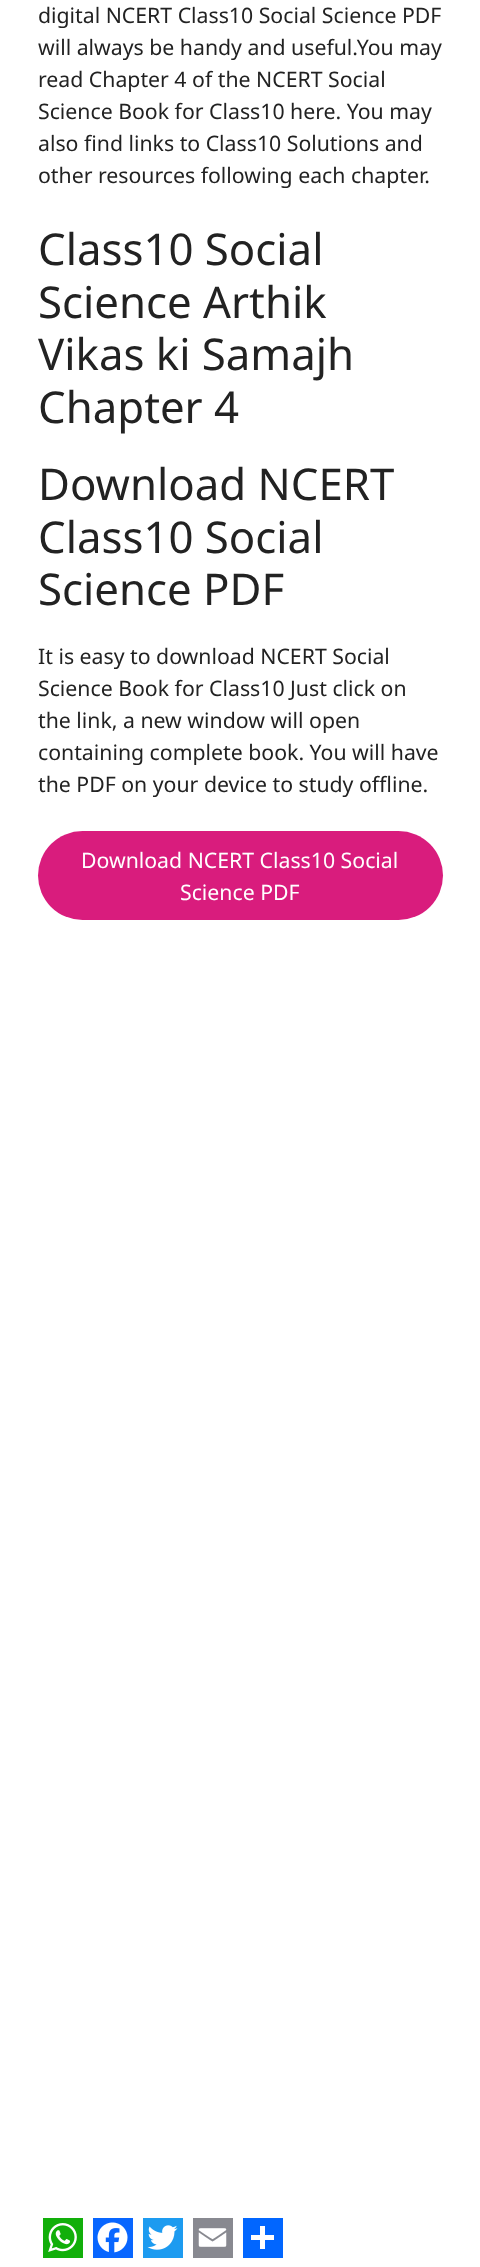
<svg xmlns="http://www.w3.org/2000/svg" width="480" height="2267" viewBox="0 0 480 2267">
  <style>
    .t1 { font: 21.25px Noto Sans; fill: #222; }
    .t2 { font: 43.75px Noto Sans; fill: #222; }
    .t3 { font: 21.25px Noto Sans; fill: #fff; }
  </style>
  <rect width="100%" height="100%" fill="#fff"/>
  <text x="38" y="23" class="t1">digital NCERT Class10 Social Science PDF</text>
  <text x="38" y="55" class="t1">will always be handy and useful.You may</text>
  <text x="38" y="87" class="t1">read Chapter 4 of the NCERT Social</text>
  <text x="38" y="119" class="t1">Science Book for Class10 here. You may</text>
  <text x="38" y="151" class="t1">also find links to Class10 Solutions and</text>
  <text x="38" y="183" class="t1">other resources following each chapter.</text>
  <text x="38" y="265" class="t2">Class10 Social</text>
  <text x="38" y="318" class="t2">Science Arthik</text>
  <text x="38" y="370" class="t2">Vikas ki Samajh</text>
  <text x="38" y="423" class="t2">Chapter 4</text>
  <text x="38" y="500" class="t2">Download NCERT</text>
  <text x="38" y="553" class="t2">Class10 Social</text>
  <text x="38" y="605" class="t2">Science PDF</text>
  <text x="38" y="664" class="t1">It is easy to download NCERT Social</text>
  <text x="38" y="696" class="t1">Science Book for Class10 Just click on</text>
  <text x="38" y="728" class="t1">the link, a new window will open</text>
  <text x="38" y="760" class="t1">containing complete book. You will have</text>
  <text x="38" y="792" class="t1">the PDF on your device to study offline.</text>
  <rect x="38" y="831" width="405" height="89" rx="44.5" fill="#d91c7d"/>
  <text x="81" y="868" class="t3">Download NCERT Class10 Social</text>
  <text x="180" y="900" class="t3">Science PDF</text>
  <rect x="43" y="2218" width="40" height="40" fill="#12af0a"/>
  <image x="48" y="2223" width="29" height="29" href="images/1.png"/>
  <rect x="93" y="2218" width="40" height="40" fill="#0866ff"/>
  <image x="97" y="2222" width="31" height="31" href="images/2.png"/>
  <rect x="143" y="2218" width="40" height="40" fill="#1d9bf0"/>
  <image x="147" y="2225" width="31" height="25" href="images/3.png"/>
  <rect x="193" y="2218" width="40" height="40" fill="#888990"/>
  <image x="198" y="2228" width="29" height="19" href="images/4.png"/>
  <rect x="243" y="2218" width="40" height="40" fill="#0166ff"/>
  <rect x="260" y="2226" width="5" height="23" fill="#fff"/>
  <rect x="251" y="2235" width="23" height="5" fill="#fff"/>
</svg>
